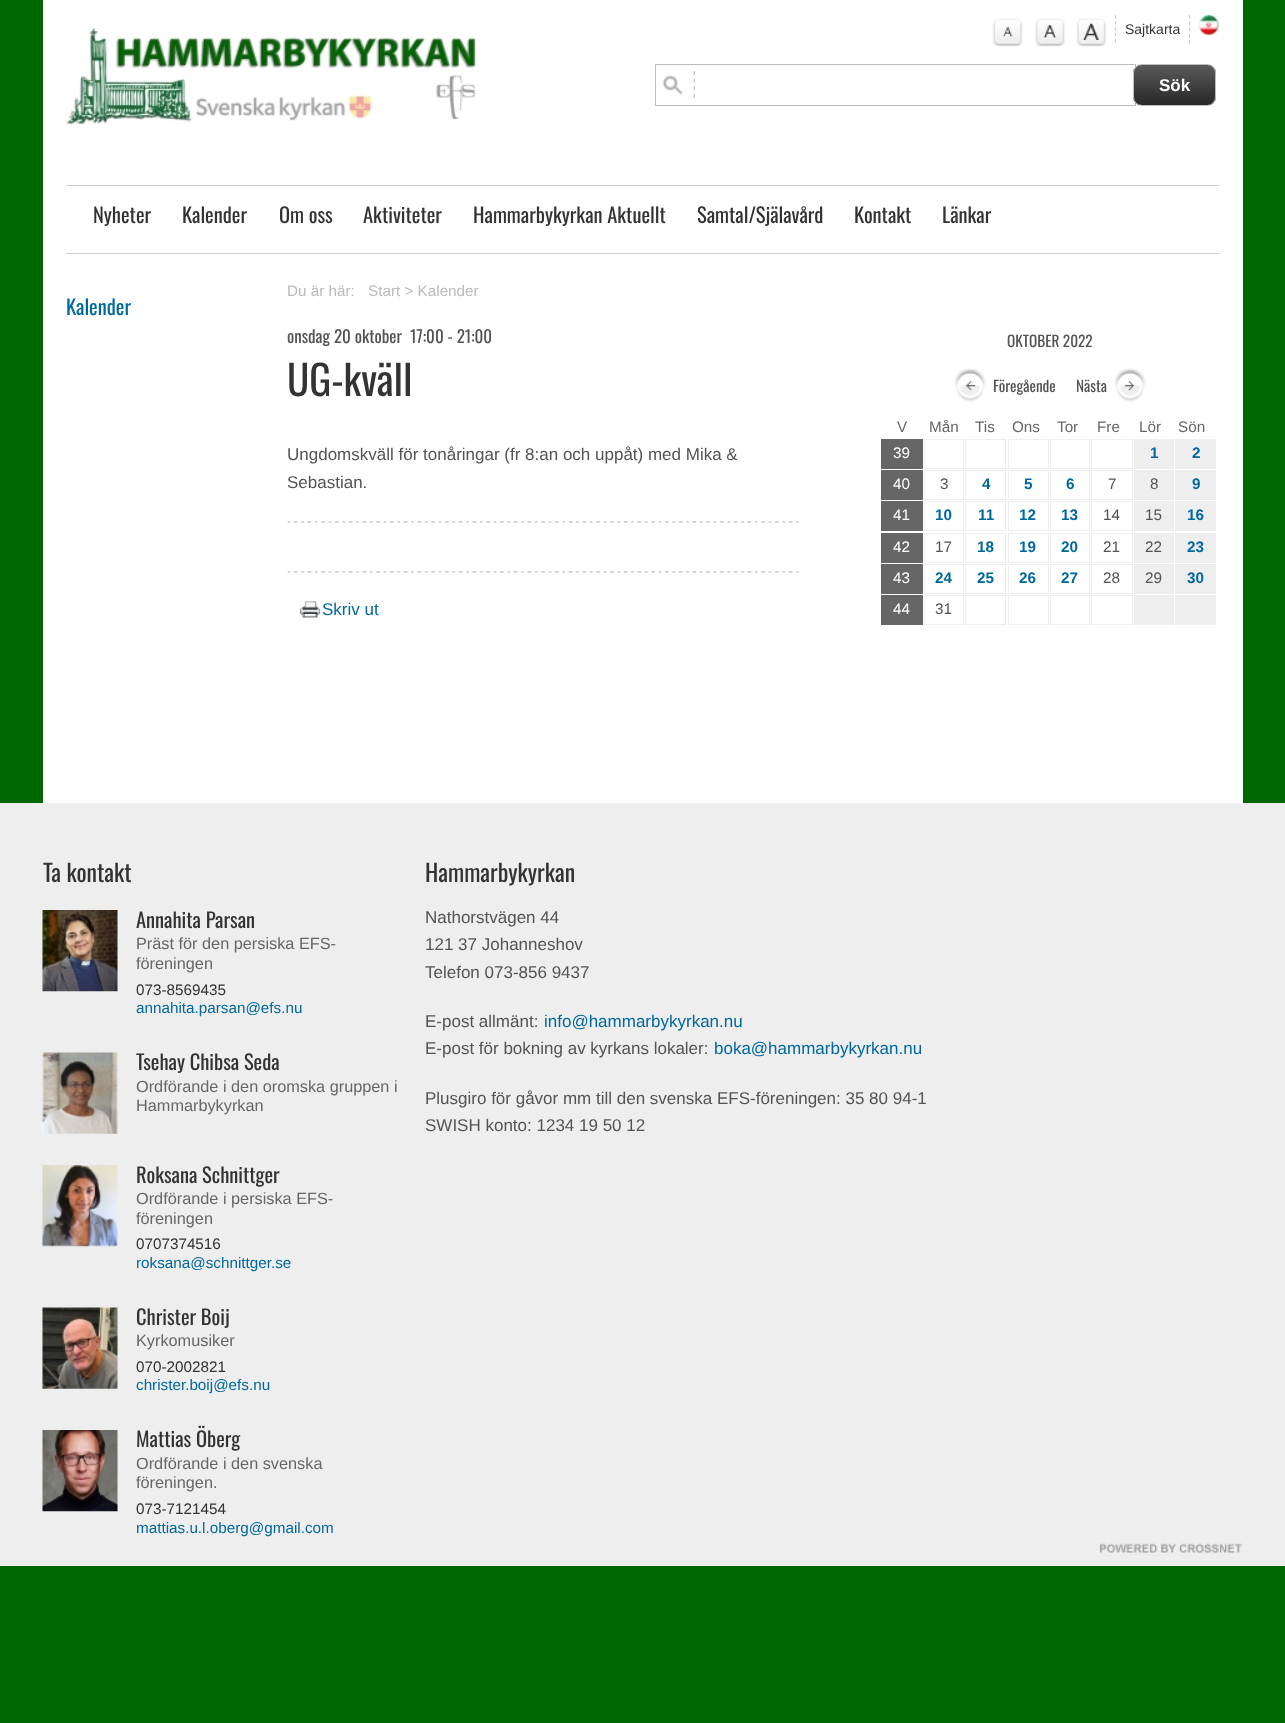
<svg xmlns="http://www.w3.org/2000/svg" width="1285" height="1723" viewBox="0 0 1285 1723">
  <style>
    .t1 { font: 14px Liberation Sans; fill: #333; }
    .t2 { font: bold 17px Liberation Sans; fill: #fff; }
    .t3 { font: 20.5px Oswald; fill: #333; }
    .t4 { font: 20.5px Oswald; fill: #0068a0; }
    .t5 { font: 15.25px Liberation Sans; fill: #bbb; }
    .t6 { font: 17px Oswald; fill: #545454; }
    .t7 { font: 41px Oswald; fill: #333; }
    .t8 { font: 17px Liberation Sans; fill: #545454; }
    .t9 { font: 17px Liberation Sans; fill: #0068a0; }
    .t10 { font: 15.25px Oswald; fill: #545454; }
    .t11 { font: 15.25px Liberation Sans; fill: #666; }
    .t12 { font: 15.25px Liberation Sans; fill: #fff; }
    .t13 { font: bold 15.25px Liberation Sans; fill: #0068a0; }
    .t14 { font: 15.25px Liberation Sans; fill: #545454; }
    .t15 { font: 23.75px Oswald; fill: #333; }
    .t16 { font: 16.3px Liberation Sans; fill: #666; }
    .t17 { font: 15.25px Liberation Sans; fill: #333; }
    .t18 { font: 15.25px Liberation Sans; fill: #0068a0; }
  </style>
  <defs>
    <clipPath id="clip1"><rect x="1133" y="64" width="83" height="42" rx="9"/></clipPath>
    <linearGradient id="g1" gradientUnits="userSpaceOnUse" x1="1174" y1="65" x2="1174" y2="105"><stop offset="0" stop-color="#5a5a5a"/><stop offset="1" stop-color="#272727"/></linearGradient>
  </defs>
  <rect width="100%" height="100%" fill="#060"/>
  <rect x="43" y="0" width="1200" height="803" fill="#fff"/>
  <image x="66" y="27" width="411" height="98" href="images/1.png"/>
  <image x="992" y="18" width="31" height="29" href="images/2.png"/>
  <image x="1035" y="18" width="30" height="29" href="images/3.png"/>
  <image x="1076" y="18" width="31" height="29" href="images/4.png"/>
  <path d="M1115.5 15V42.5" fill="none" stroke="#ccc" stroke-width="1.2" stroke-dasharray="3.75 2.19"/>
  <text x="1125" y="34" class="t1">Sajtkarta</text>
  <path d="M1189.5 15V44" fill="none" stroke="#ccc" stroke-width="1.2" stroke-dasharray="3.75 2.5"/>
  <image x="1198" y="15" width="21" height="20" href="images/5.png"/>
  <image x="662" y="71" width="33" height="27" href="images/6.png"/>
  <rect x="655.5" y="64.5" width="480" height="41" fill="none" stroke="#bdbdbd"/>
  <g clip-path="url(#clip1)">
    <rect x="1133" y="65" width="83" height="40" fill="url(#g1)"/>
  </g>
  <rect x="1133.5" y="64.5" width="82" height="41" rx="8.5" fill="none" stroke="#bdbdbd"/>
  <text x="1159" y="91" class="t2">Sök</text>
  <rect x="66" y="185" width="1153" height="1" fill="#ccc"/>
  <rect x="66" y="253" width="1153" height="1" fill="#ccc"/>
  <text x="93" y="223" class="t3">Nyheter</text>
  <text x="182" y="223" class="t3">Kalender</text>
  <text x="279" y="223" class="t3">Om oss</text>
  <text x="363" y="223" class="t3">Aktiviteter</text>
  <text x="473" y="223" class="t3">Hammarbykyrkan Aktuellt</text>
  <text x="697" y="223" class="t3">Samtal/Själavård</text>
  <text x="854" y="223" class="t3">Kontakt</text>
  <text x="942" y="223" class="t3">Länkar</text>
  <image x="960" y="278" width="2" height="1" href="images/7.png"/>
  <text x="66" y="315" class="t4">Kalender</text>
  <text x="287" y="296" class="t5">Du är här:</text>
  <text x="368" y="296" class="t5">Start &gt; Kalender</text>
  <text x="287" y="343" class="t6">onsdag 20 oktober</text>
  <text x="410" y="343" class="t6">17:00 - 21:00</text>
  <text x="287" y="396" class="t7">UG-kväll</text>
  <text x="287" y="460" class="t8">Ungdomskväll för tonåringar (fr 8:an och uppåt) med Mika &amp;</text>
  <text x="287" y="488" class="t8">Sebastian.</text>
  <image x="287" y="521" width="516" height="2" href="images/8.png"/>
  <image x="287" y="571" width="516" height="2" href="images/8.png"/>
  <image x="300" y="601" width="20" height="17" href="images/9.png"/>
  <text x="322" y="615" class="t9">Skriv ut</text>
  <text x="1007" y="347" class="t10">OKTOBER 2022</text>
  <image x="954" y="368" width="32" height="34" href="images/10.png"/>
  <text x="993" y="392" class="t10">Föregående</text>
  <text x="1076" y="392" class="t10">Nästa</text>
  <image x="1114" y="368" width="32" height="34" href="images/11.png"/>
  <text x="897" y="432" class="t11">V</text>
  <text x="929" y="432" class="t11">Mån</text>
  <text x="975" y="432" class="t11">Tis</text>
  <text x="1012" y="432" class="t11">Ons</text>
  <text x="1057" y="432" class="t11">Tor</text>
  <text x="1097" y="432" class="t11">Fre</text>
  <text x="1139" y="432" class="t11">Lör</text>
  <text x="1178" y="432" class="t11">Sön</text>
  <rect x="881" y="439" width="42" height="30" fill="#666"/>
  <text x="893" y="458" class="t12">39</text>
  <rect x="924.5" y="439.5" width="39" height="29" fill="none" stroke="#eee"/>
  <rect x="965.5" y="439.5" width="40" height="29" fill="none" stroke="#eee"/>
  <rect x="1008.5" y="439.5" width="40" height="29" fill="none" stroke="#eee"/>
  <rect x="1050.5" y="439.5" width="39" height="29" fill="none" stroke="#eee"/>
  <rect x="1091.5" y="439.5" width="41" height="29" fill="none" stroke="#eee"/>
  <rect x="1134" y="439" width="40" height="30" fill="#eee"/>
  <text x="1150" y="458" class="t13">1</text>
  <rect x="1175" y="439" width="41" height="30" fill="#eee"/>
  <text x="1192" y="458" class="t13">2</text>
  <rect x="881" y="470" width="42" height="30" fill="#666"/>
  <text x="893" y="489" class="t12">40</text>
  <rect x="924.5" y="470.5" width="39" height="29" fill="none" stroke="#eee"/>
  <text x="940" y="489" class="t14">3</text>
  <rect x="965.5" y="470.5" width="40" height="29" fill="none" stroke="#eee"/>
  <text x="982" y="489" class="t13">4</text>
  <rect x="1008.5" y="470.5" width="40" height="29" fill="none" stroke="#eee"/>
  <text x="1024" y="489" class="t13">5</text>
  <rect x="1050.5" y="470.5" width="39" height="29" fill="none" stroke="#eee"/>
  <text x="1066" y="489" class="t13">6</text>
  <rect x="1091.5" y="470.5" width="41" height="29" fill="none" stroke="#eee"/>
  <text x="1108" y="489" class="t14">7</text>
  <rect x="1134" y="470" width="40" height="30" fill="#eee"/>
  <text x="1150" y="489" class="t14">8</text>
  <rect x="1175" y="470" width="41" height="30" fill="#eee"/>
  <text x="1192" y="489" class="t13">9</text>
  <rect x="881" y="501" width="42" height="30" fill="#666"/>
  <text x="893" y="520" class="t12">41</text>
  <rect x="924.5" y="501.5" width="39" height="29" fill="none" stroke="#eee"/>
  <text x="935" y="520" class="t13">10</text>
  <rect x="965.5" y="501.5" width="40" height="29" fill="none" stroke="#eee"/>
  <text x="978" y="520" class="t13">11</text>
  <rect x="1008.5" y="501.5" width="40" height="29" fill="none" stroke="#eee"/>
  <text x="1019" y="520" class="t13">12</text>
  <rect x="1050.5" y="501.5" width="39" height="29" fill="none" stroke="#eee"/>
  <text x="1061" y="520" class="t13">13</text>
  <rect x="1091.5" y="501.5" width="41" height="29" fill="none" stroke="#eee"/>
  <text x="1103" y="520" class="t14">14</text>
  <rect x="1134" y="501" width="40" height="30" fill="#eee"/>
  <text x="1145" y="520" class="t14">15</text>
  <rect x="1175" y="501" width="41" height="30" fill="#eee"/>
  <text x="1187" y="520" class="t13">16</text>
  <rect x="881" y="533" width="42" height="30" fill="#666"/>
  <text x="893" y="552" class="t12">42</text>
  <rect x="924.5" y="533.5" width="39" height="29" fill="none" stroke="#eee"/>
  <text x="935" y="552" class="t14">17</text>
  <rect x="965.5" y="533.5" width="40" height="29" fill="none" stroke="#eee"/>
  <text x="977" y="552" class="t13">18</text>
  <rect x="1008.5" y="533.5" width="40" height="29" fill="none" stroke="#eee"/>
  <text x="1019" y="552" class="t13">19</text>
  <rect x="1050.5" y="533.5" width="39" height="29" fill="none" stroke="#eee"/>
  <text x="1061" y="552" class="t13">20</text>
  <rect x="1091.5" y="533.5" width="41" height="29" fill="none" stroke="#eee"/>
  <text x="1103" y="552" class="t14">21</text>
  <rect x="1134" y="533" width="40" height="30" fill="#eee"/>
  <text x="1145" y="552" class="t14">22</text>
  <rect x="1175" y="533" width="41" height="30" fill="#eee"/>
  <text x="1187" y="552" class="t13">23</text>
  <rect x="881" y="564" width="42" height="30" fill="#666"/>
  <text x="893" y="583" class="t12">43</text>
  <rect x="924.5" y="564.5" width="39" height="29" fill="none" stroke="#eee"/>
  <text x="935" y="583" class="t13">24</text>
  <rect x="965.5" y="564.5" width="40" height="29" fill="none" stroke="#eee"/>
  <text x="977" y="583" class="t13">25</text>
  <rect x="1008.5" y="564.5" width="40" height="29" fill="none" stroke="#eee"/>
  <text x="1019" y="583" class="t13">26</text>
  <rect x="1050.5" y="564.5" width="39" height="29" fill="none" stroke="#eee"/>
  <text x="1061" y="583" class="t13">27</text>
  <rect x="1091.5" y="564.5" width="41" height="29" fill="none" stroke="#eee"/>
  <text x="1103" y="583" class="t14">28</text>
  <rect x="1134" y="564" width="40" height="30" fill="#eee"/>
  <text x="1145" y="583" class="t14">29</text>
  <rect x="1175" y="564" width="41" height="30" fill="#eee"/>
  <text x="1187" y="583" class="t13">30</text>
  <rect x="881" y="595" width="42" height="30" fill="#666"/>
  <text x="893" y="614" class="t12">44</text>
  <rect x="924.5" y="595.5" width="39" height="29" fill="none" stroke="#eee"/>
  <text x="935" y="614" class="t14">31</text>
  <rect x="965.5" y="595.5" width="40" height="29" fill="none" stroke="#eee"/>
  <rect x="1008.5" y="595.5" width="40" height="29" fill="none" stroke="#eee"/>
  <rect x="1050.5" y="595.5" width="39" height="29" fill="none" stroke="#eee"/>
  <rect x="1091.5" y="595.5" width="41" height="29" fill="none" stroke="#eee"/>
  <rect x="1134" y="595" width="40" height="30" fill="#eee"/>
  <rect x="1175" y="595" width="41" height="30" fill="#eee"/>
  <rect x="0" y="803" width="1285" height="763" fill="#eee"/>
  <text x="43" y="882" class="t15">Ta kontakt</text>
  <image x="42" y="910" width="76" height="82" href="images/12.png"/>
  <text x="136" y="928" class="t3">Annahita Parsan</text>
  <text x="136" y="949" class="t16">Präst för den persiska EFS-</text>
  <text x="136" y="969" class="t16">föreningen</text>
  <text x="136" y="995" class="t17">073-8569435</text>
  <text x="136" y="1013" class="t18">annahita.parsan@efs.nu</text>
  <image x="42" y="1052" width="76" height="82" href="images/13.png"/>
  <text x="136" y="1070" class="t3">Tsehay Chibsa Seda</text>
  <text x="136" y="1092" class="t16">Ordförande i den oromska gruppen i</text>
  <text x="136" y="1111" class="t16">Hammarbykyrkan</text>
  <image x="42" y="1165" width="76" height="82" href="images/14.png"/>
  <text x="136" y="1183" class="t3">Roksana Schnittger</text>
  <text x="136" y="1204" class="t16">Ordförande i persiska EFS-</text>
  <text x="136" y="1224" class="t16">föreningen</text>
  <text x="136" y="1249" class="t17">0707374516</text>
  <text x="136" y="1268" class="t18">roksana@schnittger.se</text>
  <image x="42" y="1307" width="76" height="82" href="images/15.png"/>
  <text x="136" y="1325" class="t3">Christer Boij</text>
  <text x="136" y="1346" class="t16">Kyrkomusiker</text>
  <text x="136" y="1372" class="t17">070-2002821</text>
  <text x="136" y="1390" class="t18">christer.boij@efs.nu</text>
  <image x="42" y="1430" width="76" height="82" href="images/16.png"/>
  <text x="136" y="1447" class="t3">Mattias Öberg</text>
  <text x="136" y="1469" class="t16">Ordförande i den svenska</text>
  <text x="136" y="1488" class="t16">föreningen.</text>
  <text x="136" y="1514" class="t17">073-7121454</text>
  <text x="136" y="1533" class="t18">mattias.u.l.oberg@gmail.com</text>
  <text x="425" y="882" class="t15">Hammarbykyrkan</text>
  <text x="425" y="923" class="t8">Nathorstvägen 44</text>
  <text x="425" y="950" class="t8">121 37 Johanneshov</text>
  <text x="425" y="978" class="t8">Telefon 073-856 9437</text>
  <text x="425" y="1027" class="t8">E-post allmänt:</text>
  <text x="544" y="1027" class="t9">info@hammarbykyrkan.nu</text>
  <text x="425" y="1054" class="t8">E-post för bokning av kyrkans lokaler:</text>
  <text x="714" y="1054" class="t9">boka@hammarbykyrkan.nu</text>
  <text x="425" y="1104" class="t8">Plusgiro för gåvor mm till den svenska EFS-föreningen: 35 80 94-1</text>
  <text x="425" y="1131" class="t8">SWISH konto: 1234 19 50 12</text>
  <image x="1099" y="1543" width="144" height="10" href="images/17.png"/>
</svg>
